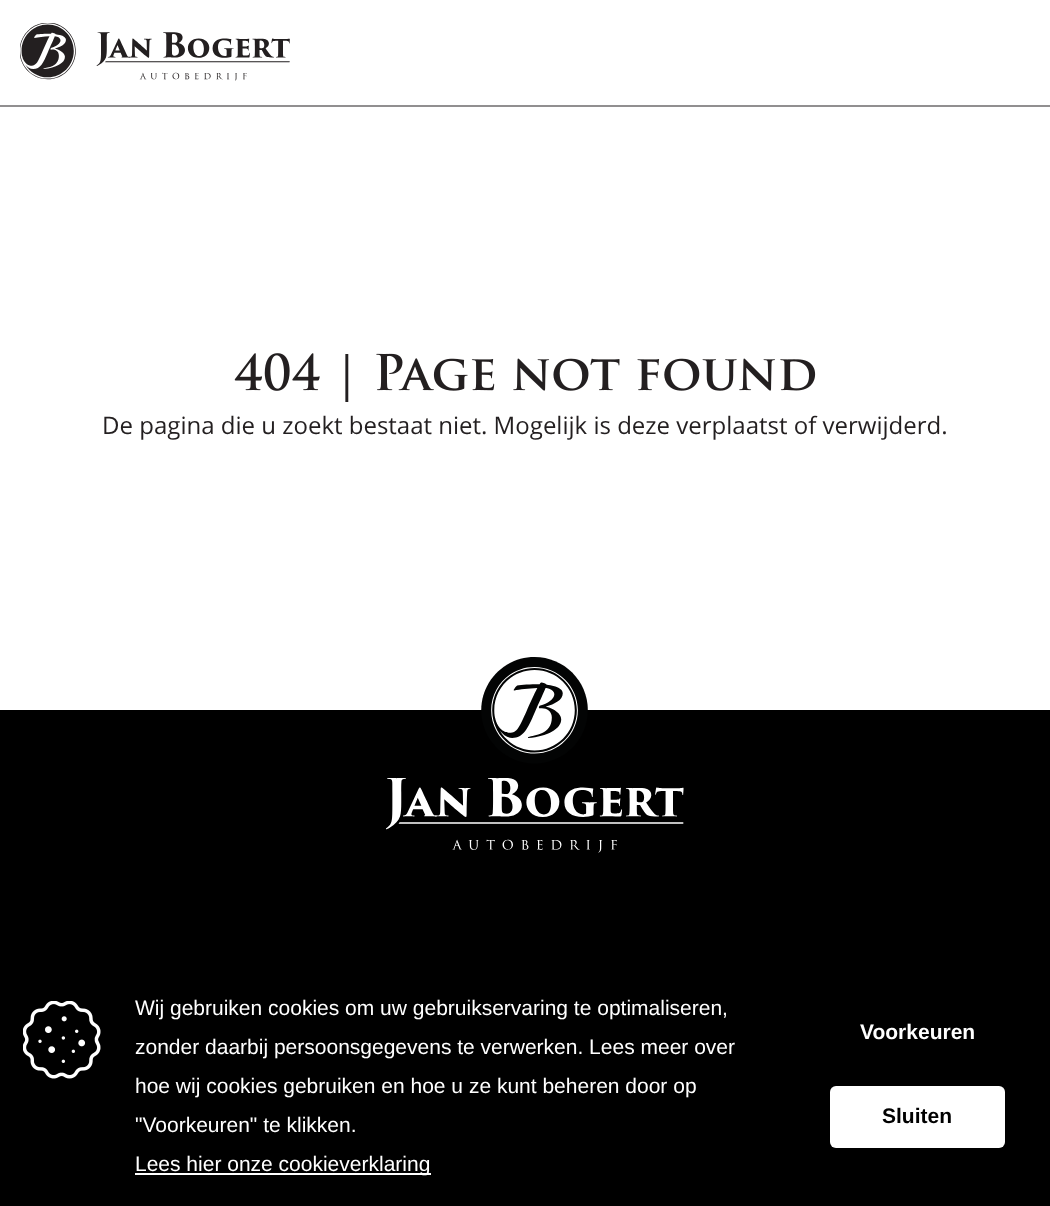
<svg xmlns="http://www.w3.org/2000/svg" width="1050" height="1206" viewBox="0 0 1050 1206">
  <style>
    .t1 { font: 24px Open Sans; fill: #231f20; }
    .t2 { font: 21px Liberation Sans; fill: #fff; }
    .t3 { font: bold 21px Liberation Sans; fill: #fff; }
    .t4 { font: bold 21px Liberation Sans; fill: #000; }
  </style>
  <rect width="100%" height="100%" fill="#fff"/>
  <rect x="0" y="105" width="1050" height="2" fill="#918f90"/>
  <image x="20" y="23" width="270" height="58" href="images/1.png"/>
  <image x="234" y="353" width="582" height="49" href="images/2.png"/>
  <text x="102" y="434" class="t1">De pagina die u zoekt bestaat niet. Mogelijk is deze verplaatst of verwijderd.</text>
  <rect x="0" y="710" width="1050" height="496" fill="#000"/>
  <image x="386" y="657" width="298" height="196" href="images/3.png"/>
  <image x="23" y="1001" width="78" height="78" href="images/4.png"/>
  <text x="135" y="1015" class="t2">Wij gebruiken cookies om uw gebruikservaring te optimaliseren,</text>
  <text x="135" y="1054" class="t2">zonder daarbij persoonsgegevens te verwerken. Lees meer over</text>
  <text x="135" y="1093" class="t2">hoe wij cookies gebruiken en hoe u ze kunt beheren door op</text>
  <text x="135" y="1132" class="t2">"Voorkeuren" te klikken.</text>
  <rect x="135" y="1173" width="296" height="2" fill="#fff"/>
  <text x="135" y="1171" class="t2">Lees hier onze cookieverklaring</text>
  <text x="860" y="1039" class="t3">Voorkeuren</text>
  <rect x="830" y="1086" width="175" height="62" rx="6" fill="#fff"/>
  <text x="882" y="1123" class="t4">Sluiten</text>
</svg>
